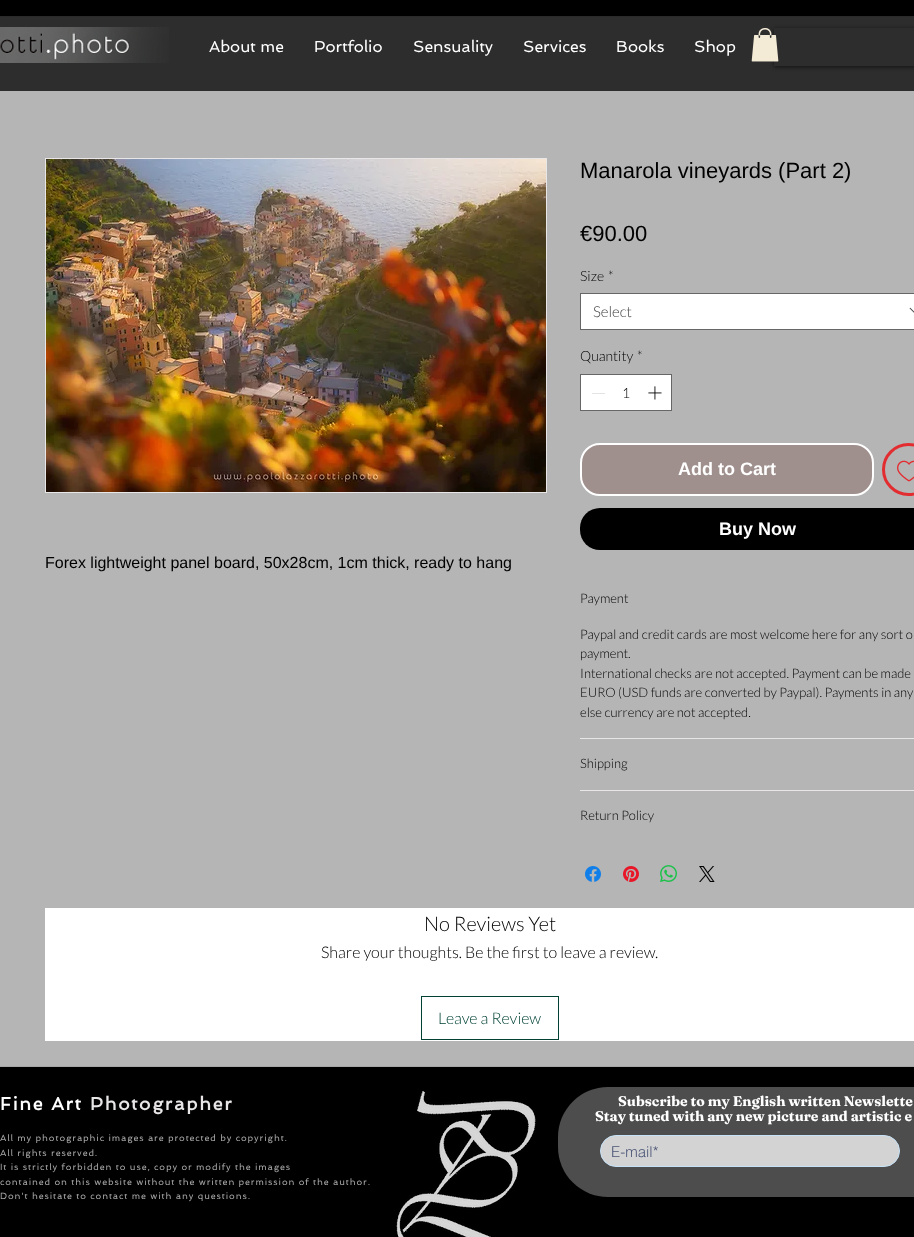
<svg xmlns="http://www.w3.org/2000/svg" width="914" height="1237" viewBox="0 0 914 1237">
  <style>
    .t1 { font: 16px Spinnaker; fill: #fff; }
    .t2 { font: 16px Liberation Sans; fill: #000; }
    .t3 { font: 22px Liberation Sans; fill: #000; }
    .t4 { font: 300 14px Lato; fill: #000; }
    .t5 { font: 300 15px Lato; fill: #444; }
    .t6 { font: bold 18px Liberation Sans; fill: #fff; }
    .t7 { font: 300 13px Lato; fill: #000; }
    .t8 { font: 300 20px Lato; fill: #000; }
    .t9 { font: 300 16px Lato; fill: #000; }
    .t10 { font: 300 16px Lato; fill: #014235; }
    .t11 { font: bold 18px Spinnaker; letter-spacing: 1.75px; fill: #fff; }
    .t12 { font: bold 18px Spinnaker; letter-spacing: 1.75px; fill: #e8e6e6; }
    .t13 { font: bold 14px Fraunces; fill: #fff; }
    .t14 { font: 300 15px helvetica; fill: #4b5676; }
    .t15 { font: 9px Spinnaker; letter-spacing: 0.9px; fill: #a9a9a9; }
  </style>
  <defs>
    <clipPath id="clip1"><path d="M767 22H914V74H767ZM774 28H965V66H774Z" clip-rule="evenodd"/></clipPath>
  </defs>
  <rect width="100%" height="100%" fill="#000"/>
  <rect x="0" y="17" width="914" height="74" fill="#2d2d2d"/>
  <image x="0" y="27" width="169" height="36" href="images/1.png"/>
  <text x="209" y="52" class="t1">About me</text>
  <text x="314" y="52" class="t1">Portfolio</text>
  <text x="413" y="52" class="t1">Sensuality</text>
  <text x="523" y="52" class="t1">Services</text>
  <text x="616" y="52" class="t1">Books</text>
  <text x="694" y="52" class="t1">Shop</text>
  <g clip-path="url(#clip1)">
    <rect x="774" y="29" width="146" height="38" fill="#00000099" filter="blur(2px)"/>
  </g>
  <image x="751" y="28" width="28" height="34" href="images/2.png"/>
  <rect x="0" y="1066" width="914" height="1" fill="#a6a6a6"/>
  <rect x="0" y="16" width="914" height="1" fill="#2a2a2a"/>
  <rect x="0" y="91" width="914" height="975" fill="#b5b5b5"/>
  <rect x="45.5" y="158.5" width="501" height="334" fill="none" stroke="#e8e6e6"/>
  <image x="46" y="159" width="500" height="333" href="images/3.png"/>
  <text x="45" y="568" class="t2">Forex lightweight panel board, 50x28cm, 1cm thick, ready to hang</text>
  <text x="580" y="178" class="t3">Manarola vineyards (Part 2)</text>
  <text x="580" y="241" class="t3">€90.00</text>
  <text x="580" y="281" class="t4">Size</text>
  <text x="608" y="281" class="t4">*</text>
  <rect x="580.5" y="293.5" width="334" height="36" fill="#fff" stroke="#666"/>
  <text x="593" y="317" class="t5">Select</text>
  <image x="909" y="307" width="5" height="6" href="images/4.png"/>
  <text x="580" y="361" class="t4">Quantity</text>
  <text x="637" y="361" class="t4">*</text>
  <rect x="580.5" y="374.5" width="91" height="36" fill="#fff" stroke="#666"/>
  <rect x="592" y="393" width="13" height="1" fill="#e3e3e3"/>
  <text x="622" y="398" class="t4">1</text>
  <image x="648" y="386" width="14" height="14" href="images/5.png"/>
  <rect x="581" y="444" width="292" height="51" rx="19" fill="#9f908e" stroke="#fff" stroke-width="2"/>
  <text x="678" y="475" class="t6">Add to Cart</text>
  <circle cx="908.5" cy="469.5" r="25" fill="none" stroke="#e32c30" stroke-width="3"/>
  <image x="897" y="460" width="17" height="22" href="images/6.png"/>
  <rect x="580" y="508" width="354" height="42" rx="20" fill="#000"/>
  <text x="719" y="535" class="t6">Buy Now</text>
  <rect x="580" y="738" width="334" height="1" fill="#e8e6e6"/>
  <text x="580" y="603" class="t7">Payment</text>
  <text x="580" y="639" class="t7">Paypal and credit cards are most welcome here for any sort o</text>
  <text x="580" y="658" class="t7">payment.</text>
  <text x="580" y="678" class="t7">International checks are not accepted. Payment can be made</text>
  <text x="580" y="697" class="t7">EURO (USD funds are converted by Paypal). Payments in any</text>
  <text x="580" y="717" class="t7">else currency are not accepted.</text>
  <rect x="580" y="790" width="334" height="1" fill="#e8e6e6"/>
  <text x="580" y="768" class="t7">Shipping</text>
  <text x="580" y="820" class="t7">Return Policy</text>
  <image x="585" y="866" width="16" height="16" href="images/7.png"/>
  <image x="623" y="866" width="16" height="16" href="images/8.png"/>
  <image x="660" y="865" width="17" height="17" href="images/9.png"/>
  <image x="699" y="866" width="16" height="16" href="images/10.png"/>
  <rect x="45" y="908" width="869" height="133" fill="#fff"/>
  <text x="424" y="931" class="t8">No Reviews Yet</text>
  <text x="321" y="958" class="t9">Share your thoughts. Be the first to leave a review.</text>
  <rect x="421.5" y="996.5" width="137" height="43" fill="none" stroke="#014235"/>
  <text x="438" y="1024" class="t10">Leave a Review</text>
  <text x="0" y="1110" class="t11">Fine Art</text>
  <text x="90" y="1110" class="t12">Photographer</text>
  <image x="396" y="1091" width="140" height="146" href="images/11.png"/>
  <rect x="558" y="1087" width="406" height="110" rx="50" fill="#4d4d4d"/>
  <text x="618" y="1106" class="t13">Subscribe to my English written Newslette</text>
  <text x="595" y="1121" class="t13">Stay tuned with any new picture and artistic e</text>
  <rect x="600.5" y="1135.5" width="299" height="31" rx="15.5" fill="#d3d3d3" stroke="#c6e2f7"/>
  <text x="611" y="1157" class="t14">E-mail*</text>
  <text x="0" y="1141" class="t15">All my photographic images are protected by copyright.</text>
  <text x="0" y="1156" class="t15">All rights reserved.</text>
  <text x="0" y="1170" class="t15">It is strictly forbidden to use, copy or modify the images</text>
  <text x="0" y="1185" class="t15">contained on this website without the written permission of the author.</text>
  <text x="0" y="1199" class="t15">Don't hesitate to contact me with any questions.</text>
</svg>
